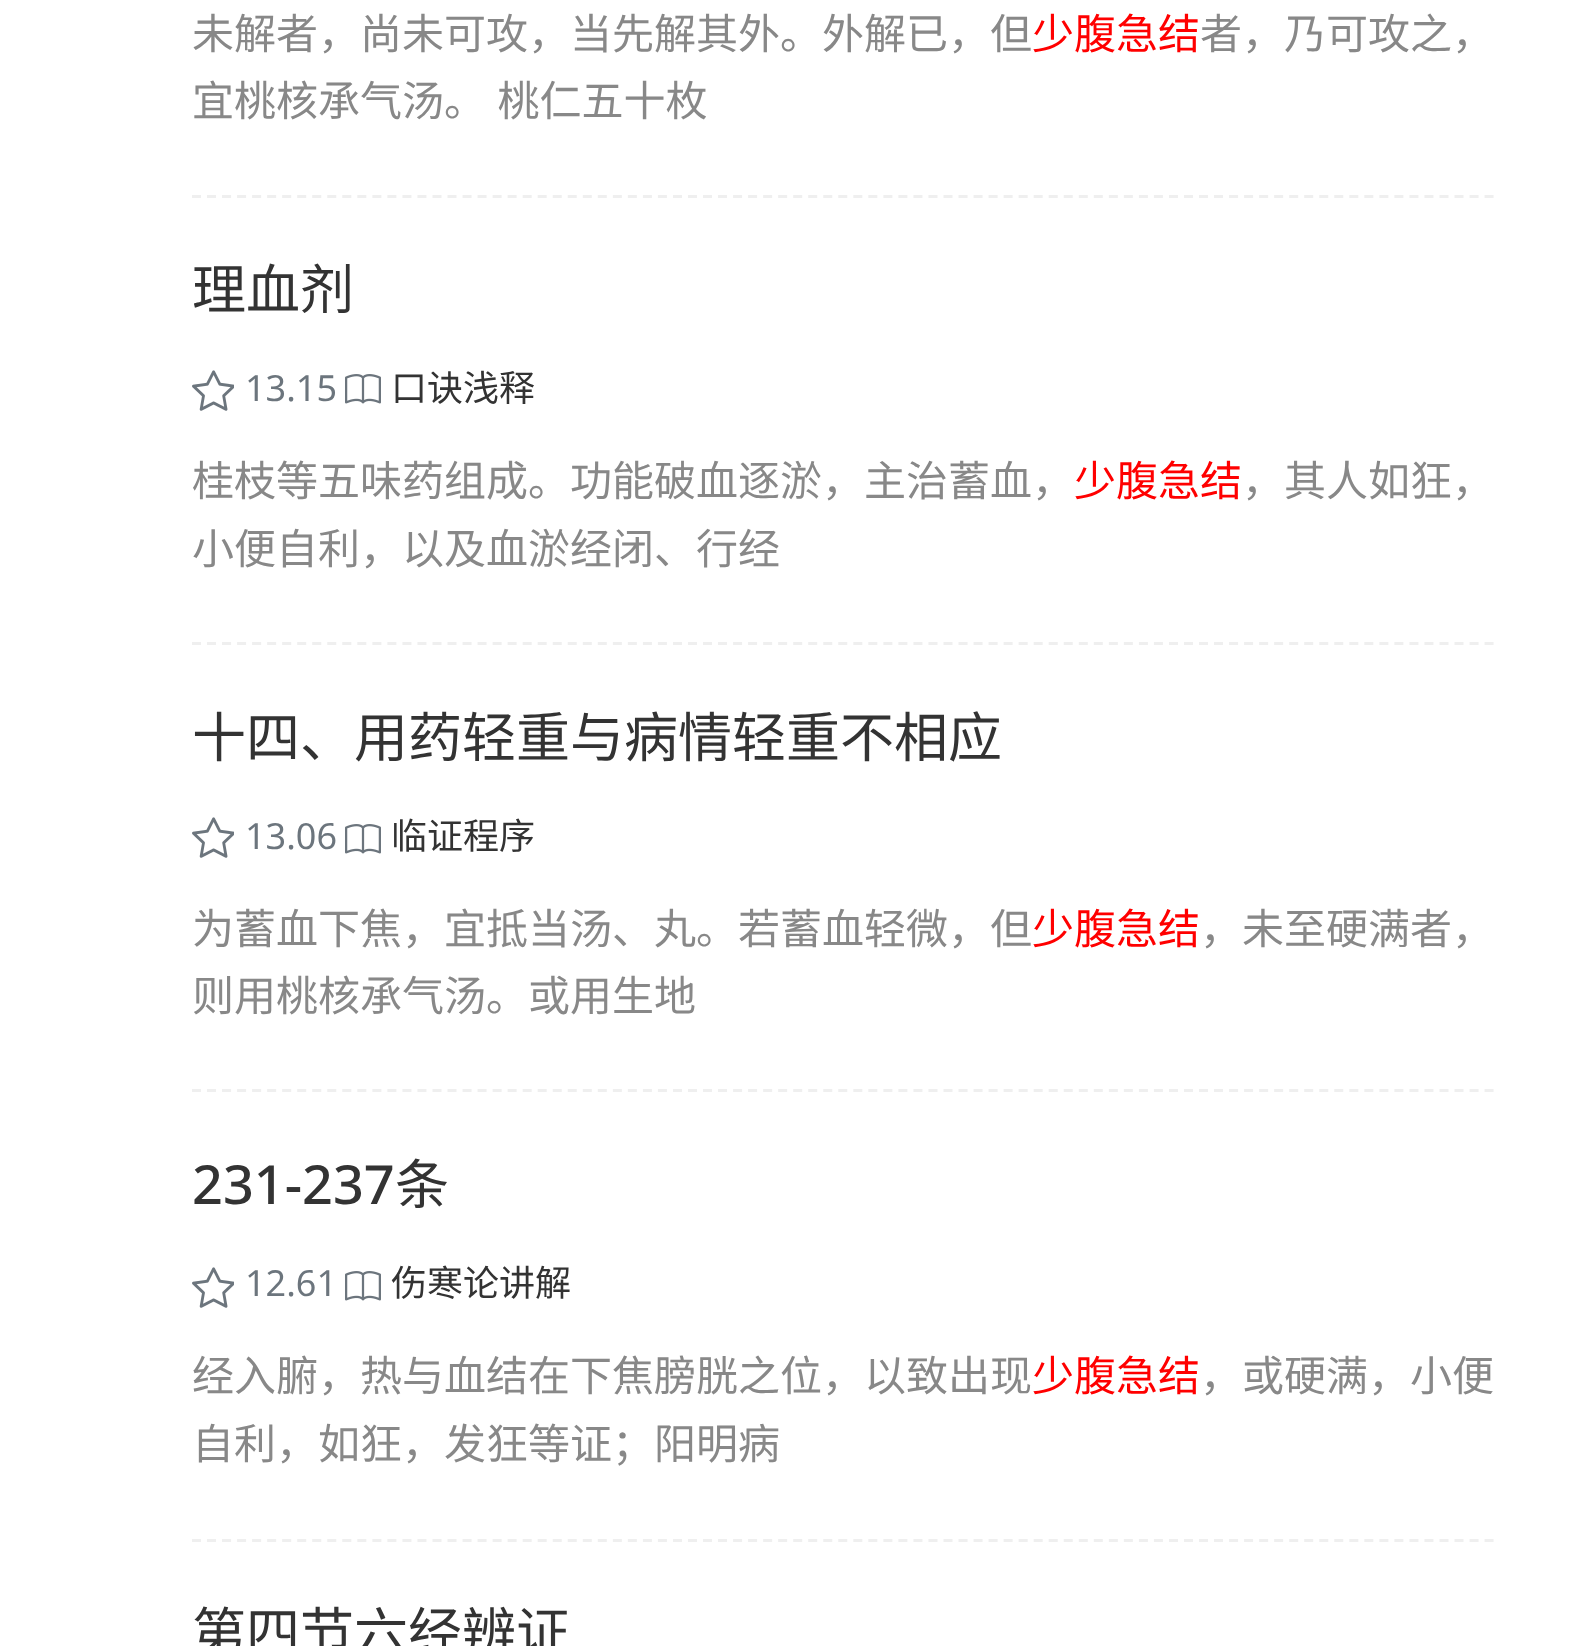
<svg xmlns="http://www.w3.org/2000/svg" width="1590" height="1646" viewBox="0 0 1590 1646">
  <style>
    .t1 { font: 42px Noto Sans CJK SC; fill: #888; }
    .t2 { font: 42px Noto Sans CJK SC; fill: #f00; }
    .t3 { font: 54px Noto Sans CJK SC; fill: #333; }
    .t4 { font: 36px Noto Sans; fill: #6c757d; }
    .t5 { font: 36px Noto Sans CJK SC; fill: #333; }
    .t6 { font: 500 54px Noto Sans; fill: #333; }
  </style>
  <rect width="100%" height="100%" fill="#fff"/>
  <path d="M192 196.5H1494" fill="none" stroke="#efefef" stroke-width="3" stroke-dasharray="9 6.03"/>
  <text x="192" y="49" class="t1">未解者，尚未可攻，当先解其外。外解已，但</text>
  <text x="1032" y="49" class="t2">少腹急结</text>
  <text x="1200" y="49" class="t1">者，乃可攻之，</text>
  <text x="192" y="116" word-spacing="2" class="t1">宜桃核承气汤。 桃仁五十枚</text>
  <path d="M192 643.5H1494" fill="none" stroke="#efefef" stroke-width="3" stroke-dasharray="9 6.03"/>
  <text x="192" y="309" class="t3">理血剂</text>
  <image x="192" y="370" width="42" height="41" href="images/1.png"/>
  <text x="245" y="401" class="t4">13.15</text>
  <image x="345" y="374" width="36" height="30" href="images/2.png"/>
  <text x="391" y="401" class="t5">口诀浅释</text>
  <text x="192" y="496" class="t1">桂枝等五味药组成。功能破血逐淤，主治蓄血，</text>
  <text x="1074" y="496" class="t2">少腹急结</text>
  <text x="1242" y="496" class="t1">，其人如狂，</text>
  <text x="192" y="564" class="t1">小便自利，以及血淤经闭、行经</text>
  <path d="M192 1090.5H1494" fill="none" stroke="#efefef" stroke-width="3" stroke-dasharray="9 6.03"/>
  <text x="192" y="757" class="t3">十四、用药轻重与病情轻重不相应</text>
  <image x="192" y="817" width="42" height="41" href="images/1.png"/>
  <text x="245" y="849" class="t4">13.06</text>
  <image x="345" y="824" width="36" height="30" href="images/2.png"/>
  <text x="391" y="849" class="t5">临证程序</text>
  <text x="192" y="944" class="t1">为蓄血下焦，宜抵当汤、丸。若蓄血轻微，但</text>
  <text x="1032" y="944" class="t2">少腹急结</text>
  <text x="1200" y="944" class="t1">，未至硬满者，</text>
  <text x="192" y="1011" class="t1">则用桃核承气汤。或用生地</text>
  <path d="M192 1540.5H1494" fill="none" stroke="#efefef" stroke-width="3" stroke-dasharray="9 6.03"/>
  <text x="192" y="1204" class="t6">231-237</text>
  <text x="395" y="1204" class="t3">条</text>
  <image x="192" y="1267" width="42" height="41" href="images/1.png"/>
  <text x="245" y="1296" class="t4">12.61</text>
  <image x="345" y="1271" width="36" height="30" href="images/2.png"/>
  <text x="391" y="1296" class="t5">伤寒论讲解</text>
  <text x="192" y="1391" class="t1">经入腑，热与血结在下焦膀胱之位，以致出现</text>
  <text x="1032" y="1391" class="t2">少腹急结</text>
  <text x="1200" y="1391" class="t1">，或硬满，小便</text>
  <text x="192" y="1459" class="t1">自利，如狂，发狂等证；阳明病</text>
  <text x="192" y="1652" class="t3">第四节六经辨证</text>
</svg>
